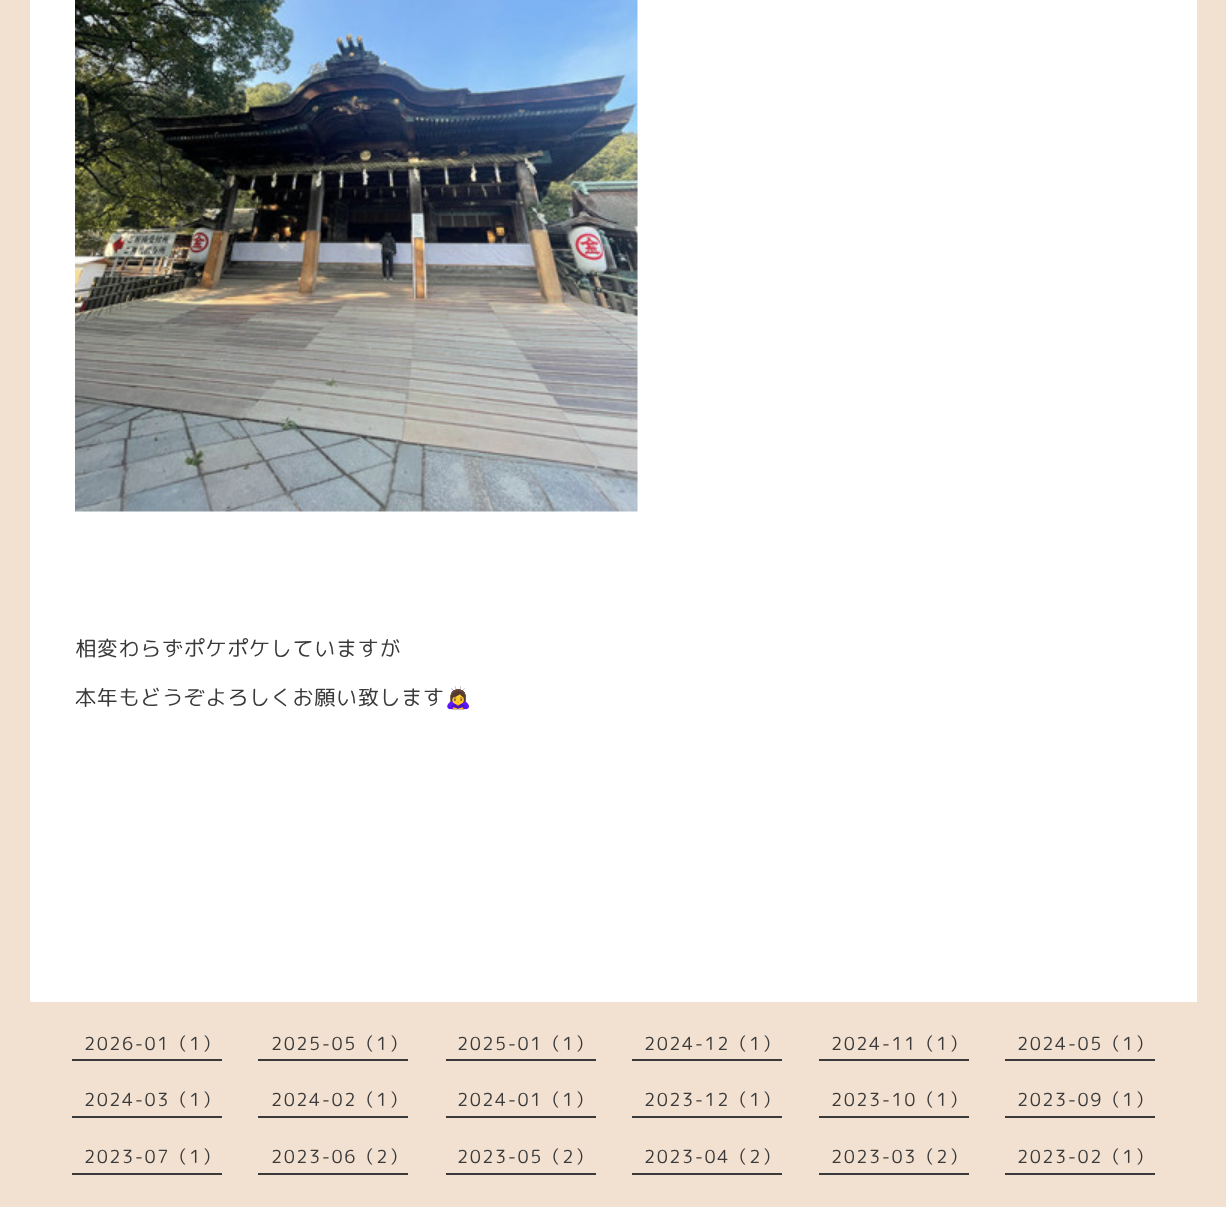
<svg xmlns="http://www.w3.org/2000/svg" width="1226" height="1207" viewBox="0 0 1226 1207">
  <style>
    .t1 { font: 21px 'Rounded Mplus 1c'; letter-spacing: 0.75px; fill: #3a3a3a; }
    .t2 { font: 21px Noto Color Emoji; letter-spacing: 0.75px; fill: #3a3a3a; }
    .t3 { font: 18px 'Rounded Mplus 1c'; letter-spacing: 1.5px; fill: #3a3a3a; }
  </style>
  <rect width="100%" height="100%" fill="#f2e1d1"/>
  <rect x="30" y="0" width="1167" height="1002" fill="#fff"/>
  <image x="75" y="0" width="563" height="512" href="images/1.png"/>
  <text x="75" y="656" class="t1">相変わらずポケポケしていますが</text>
  <text x="75" y="705" class="t1">本年もどうぞよろしくお願い致します</text>
  <text x="445" y="705" class="t2">🙇‍♀️</text>
  <rect x="72" y="1059" width="150" height="2" fill="#3a3a3a"/>
  <text x="84" y="1050" class="t3">2026-01（1）</text>
  <rect x="258" y="1059" width="150" height="2" fill="#3a3a3a"/>
  <text x="271" y="1050" class="t3">2025-05（1）</text>
  <rect x="446" y="1059" width="150" height="2" fill="#3a3a3a"/>
  <text x="457" y="1050" class="t3">2025-01（1）</text>
  <rect x="632" y="1059" width="150" height="2" fill="#3a3a3a"/>
  <text x="644" y="1050" class="t3">2024-12（1）</text>
  <rect x="819" y="1059" width="150" height="2" fill="#3a3a3a"/>
  <text x="831" y="1050" class="t3">2024-11（1）</text>
  <rect x="1005" y="1059" width="150" height="2" fill="#3a3a3a"/>
  <text x="1017" y="1050" class="t3">2024-05（1）</text>
  <rect x="72" y="1116" width="150" height="2" fill="#3a3a3a"/>
  <text x="84" y="1106" class="t3">2024-03（1）</text>
  <rect x="258" y="1116" width="150" height="2" fill="#3a3a3a"/>
  <text x="271" y="1106" class="t3">2024-02（1）</text>
  <rect x="446" y="1116" width="150" height="2" fill="#3a3a3a"/>
  <text x="457" y="1106" class="t3">2024-01（1）</text>
  <rect x="632" y="1116" width="150" height="2" fill="#3a3a3a"/>
  <text x="644" y="1106" class="t3">2023-12（1）</text>
  <rect x="819" y="1116" width="150" height="2" fill="#3a3a3a"/>
  <text x="831" y="1106" class="t3">2023-10（1）</text>
  <rect x="1005" y="1116" width="150" height="2" fill="#3a3a3a"/>
  <text x="1017" y="1106" class="t3">2023-09（1）</text>
  <rect x="72" y="1173" width="150" height="2" fill="#3a3a3a"/>
  <text x="84" y="1163" class="t3">2023-07（1）</text>
  <rect x="258" y="1173" width="150" height="2" fill="#3a3a3a"/>
  <text x="271" y="1163" class="t3">2023-06（2）</text>
  <rect x="446" y="1173" width="150" height="2" fill="#3a3a3a"/>
  <text x="457" y="1163" class="t3">2023-05（2）</text>
  <rect x="632" y="1173" width="150" height="2" fill="#3a3a3a"/>
  <text x="644" y="1163" class="t3">2023-04（2）</text>
  <rect x="819" y="1173" width="150" height="2" fill="#3a3a3a"/>
  <text x="831" y="1163" class="t3">2023-03（2）</text>
  <rect x="1005" y="1173" width="150" height="2" fill="#3a3a3a"/>
  <text x="1017" y="1163" class="t3">2023-02（1）</text>
</svg>
